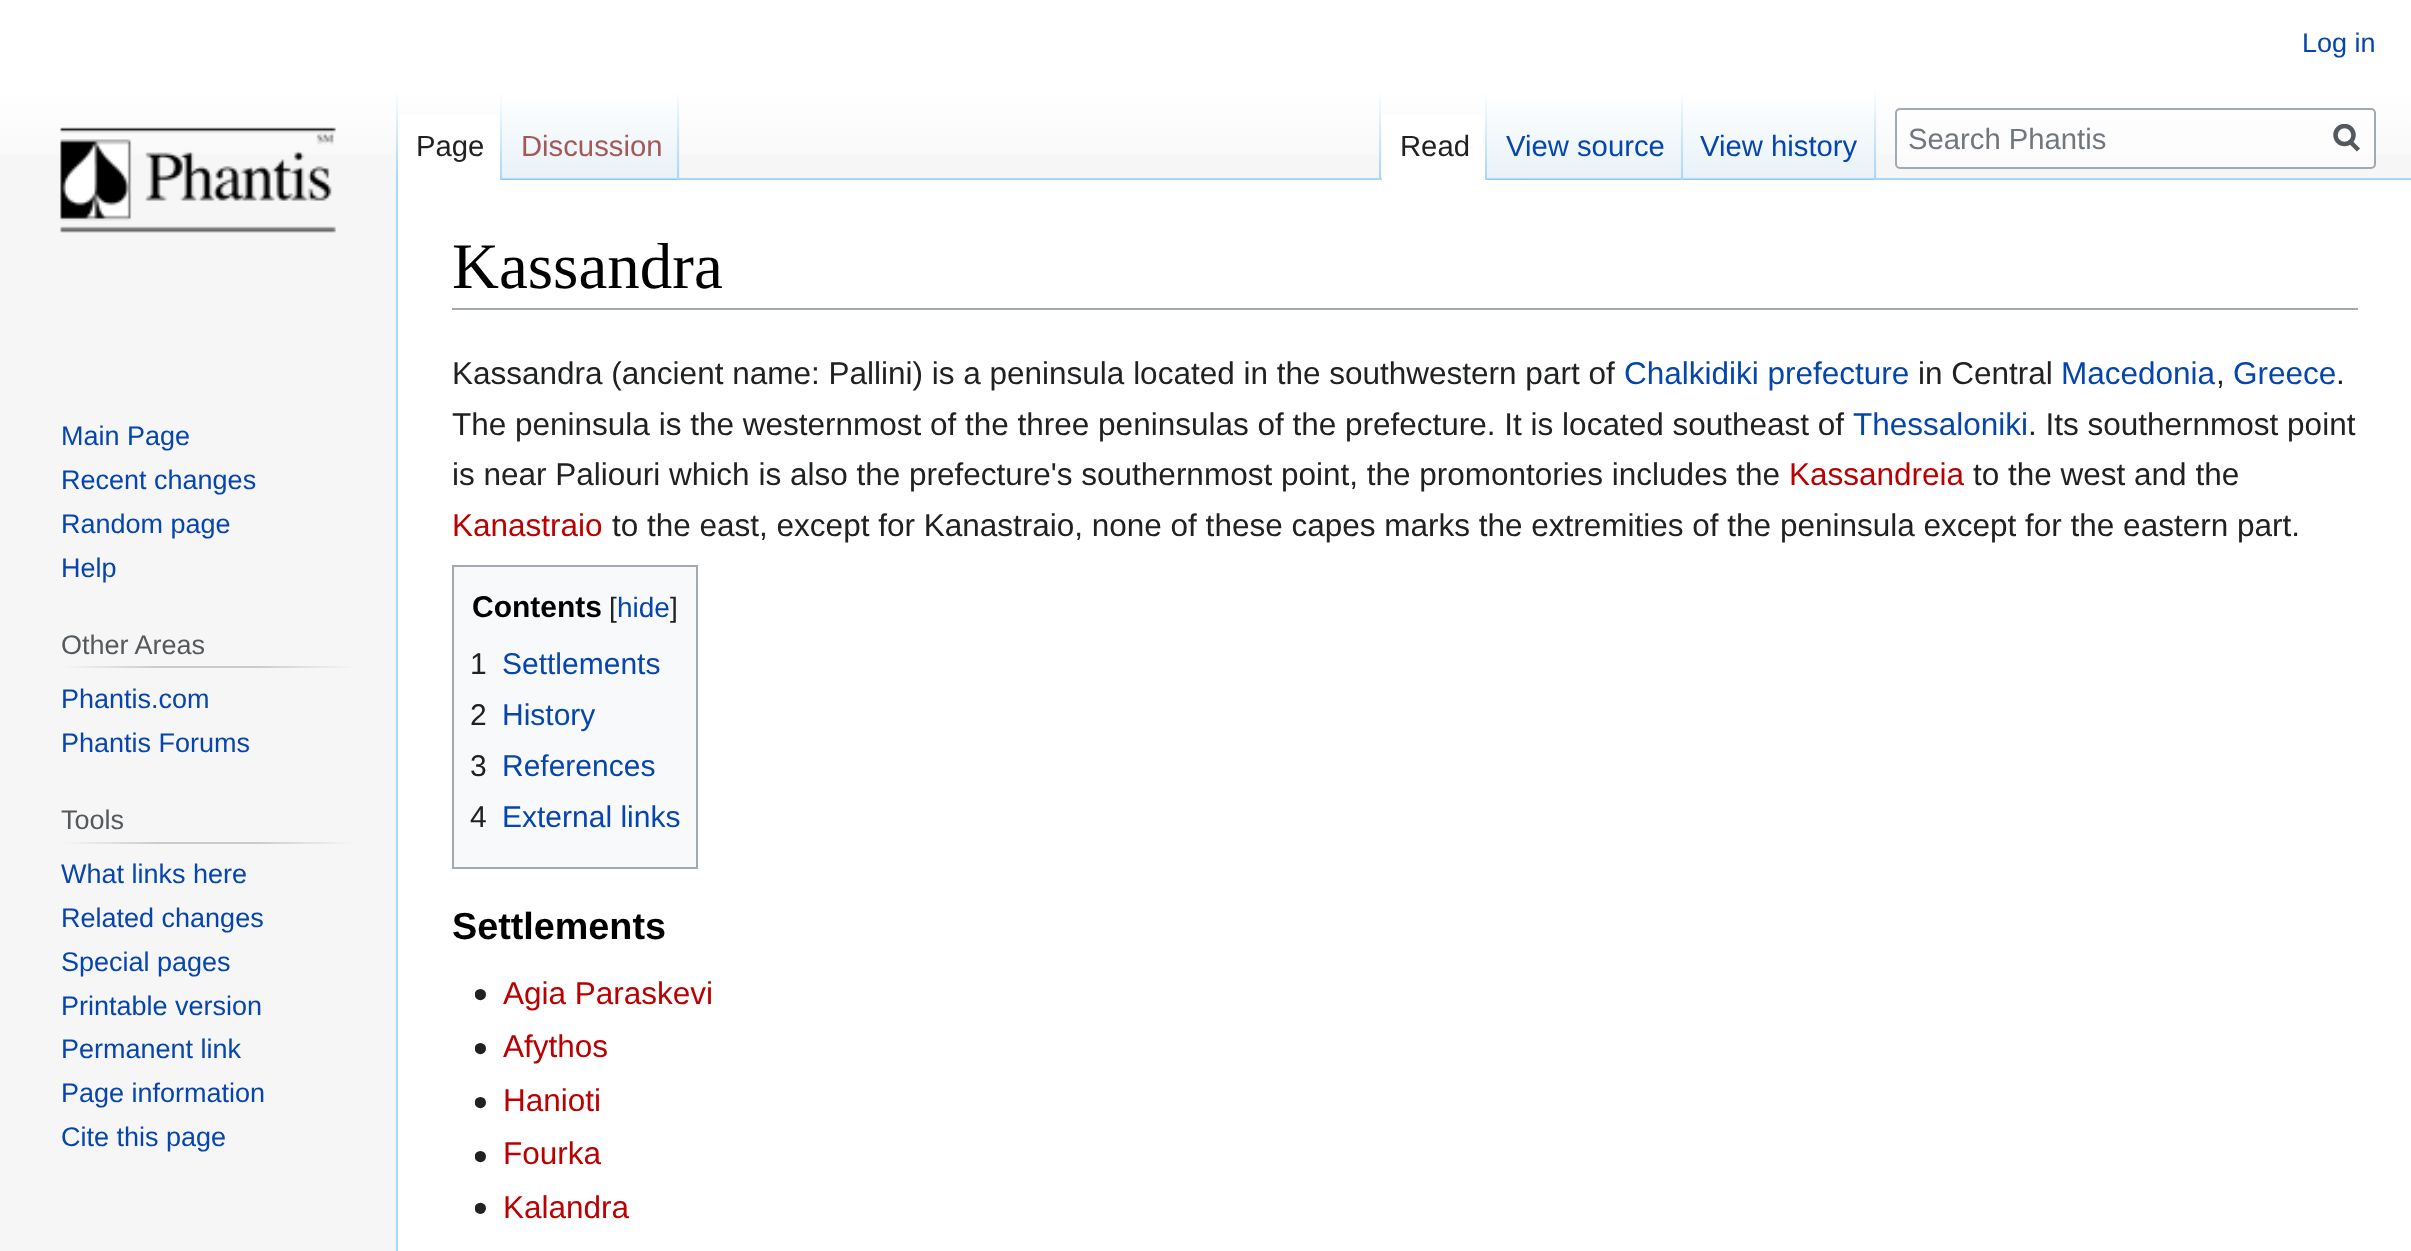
<svg xmlns="http://www.w3.org/2000/svg" width="2411" height="1251" viewBox="0 0 2411 1251">
  <style>
    .t1 { font: 27px Liberation Sans; fill: #0645ad; }
    .t2 { font: 29.25px Liberation Sans; fill: #202122; }
    .t3 { font: 29.25px Liberation Sans; fill: #a55858; }
    .t4 { font: 29.25px Liberation Sans; fill: #0645ad; }
    .t5 { font: 29.25px Liberation Sans; fill: #72777d; }
    .t6 { font: 27px Liberation Sans; fill: #54595d; }
    .t7 { font: 65px Liberation Serif; fill: #000; }
    .t8 { font: 31.5px Liberation Sans; fill: #202122; }
    .t9 { font: 31.5px Liberation Sans; fill: #0645ad; }
    .t10 { font: 31.5px Liberation Sans; fill: #ba0000; }
    .t11 { font: bold 30px Liberation Sans; fill: #000; }
    .t12 { font: 28px Liberation Sans; fill: #202122; }
    .t13 { font: 28px Liberation Sans; fill: #0645ad; }
    .t14 { font: 30px Liberation Sans; fill: #202122; }
    .t15 { font: 30px Liberation Sans; fill: #0645ad; }
    .t16 { font: bold 37.75px Liberation Sans; fill: #000; }
  </style>
  <defs>
    <linearGradient id="g1" gradientUnits="userSpaceOnUse" x1="1206" y1="0" x2="1206" y2="180"><stop offset="0.5" stop-color="#fff"/><stop offset="1" stop-color="#f6f6f6"/></linearGradient>
    <linearGradient id="g2" gradientUnits="userSpaceOnUse" x1="397" y1="90" x2="397" y2="180"><stop offset="0" stop-color="#a7d7f9" stop-opacity="0"/><stop offset="1" stop-color="#a7d7f9"/></linearGradient>
    <linearGradient id="g3" gradientUnits="userSpaceOnUse" x1="501" y1="90" x2="501" y2="180"><stop offset="0" stop-color="#fff"/><stop offset="1" stop-color="#a7d7f9"/></linearGradient>
    <linearGradient id="g4" gradientUnits="userSpaceOnUse" x1="591" y1="180" x2="591" y2="90"><stop offset="0" stop-color="#77c1f6"/><stop offset="0.03" stop-color="#e8f2f8"/><stop offset="1" stop-color="#fff"/></linearGradient>
    <linearGradient id="g5" gradientUnits="userSpaceOnUse" x1="678" y1="90" x2="678" y2="180"><stop offset="0" stop-color="#a7d7f9" stop-opacity="0"/><stop offset="1" stop-color="#a7d7f9"/></linearGradient>
    <linearGradient id="g6" gradientUnits="userSpaceOnUse" x1="1380" y1="90" x2="1380" y2="180"><stop offset="0" stop-color="#a7d7f9" stop-opacity="0"/><stop offset="1" stop-color="#a7d7f9"/></linearGradient>
    <linearGradient id="g7" gradientUnits="userSpaceOnUse" x1="1486" y1="90" x2="1486" y2="180"><stop offset="0" stop-color="#fff"/><stop offset="1" stop-color="#a7d7f9"/></linearGradient>
    <linearGradient id="g8" gradientUnits="userSpaceOnUse" x1="1585" y1="180" x2="1585" y2="90"><stop offset="0" stop-color="#77c1f6"/><stop offset="0.03" stop-color="#e8f2f8"/><stop offset="1" stop-color="#fff"/></linearGradient>
    <linearGradient id="g9" gradientUnits="userSpaceOnUse" x1="1682" y1="90" x2="1682" y2="180"><stop offset="0" stop-color="#a7d7f9" stop-opacity="0"/><stop offset="1" stop-color="#a7d7f9"/></linearGradient>
    <linearGradient id="g10" gradientUnits="userSpaceOnUse" x1="1780" y1="180" x2="1780" y2="90"><stop offset="0" stop-color="#77c1f6"/><stop offset="0.03" stop-color="#e8f2f8"/><stop offset="1" stop-color="#fff"/></linearGradient>
    <linearGradient id="g11" gradientUnits="userSpaceOnUse" x1="1875" y1="90" x2="1875" y2="180"><stop offset="0" stop-color="#a7d7f9" stop-opacity="0"/><stop offset="1" stop-color="#a7d7f9"/></linearGradient>
    <clipPath id="clip1"><rect x="2333" y="124" width="27" height="29"/></clipPath>
    <linearGradient id="g12" gradientUnits="userSpaceOnUse" x1="61" y1="667" x2="356" y2="667"><stop offset="0" stop-color="#f6f6f6"/><stop offset="0.33" stop-color="#c8ccd1"/><stop offset="0.66" stop-color="#c8ccd1"/><stop offset="1" stop-color="#f6f6f6"/></linearGradient>
    <linearGradient id="g13" gradientUnits="userSpaceOnUse" x1="61" y1="843" x2="356" y2="843"><stop offset="0" stop-color="#f6f6f6"/><stop offset="0.33" stop-color="#c8ccd1"/><stop offset="0.66" stop-color="#c8ccd1"/><stop offset="1" stop-color="#f6f6f6"/></linearGradient>
  </defs>
  <rect width="100%" height="100%" fill="#f6f6f6"/>
  <rect x="0" y="0" width="2411" height="155" fill="url(#g1)"/>
  <text x="2302" y="52" class="t1">Log in</text>
  <rect x="396" y="178" width="2" height="1073" fill="#a7d7f9"/>
  <rect x="396" y="90" width="2" height="90" fill="url(#g2)"/>
  <rect x="398" y="115" width="102" height="65" fill="#fff"/>
  <rect x="500" y="90" width="2" height="90" fill="url(#g3)"/>
  <text x="416" y="156" class="t2">Page</text>
  <rect x="502" y="103" width="178" height="77" fill="url(#g4)"/>
  <rect x="677" y="90" width="2" height="90" fill="url(#g5)"/>
  <text x="521" y="156" class="t3">Discussion</text>
  <rect x="680" y="178" width="1731" height="2" fill="#a7d7f9"/>
  <rect x="1379" y="90" width="2" height="90" fill="url(#g6)"/>
  <rect x="1382" y="115" width="103" height="65" fill="#fff"/>
  <rect x="1485" y="90" width="2" height="90" fill="url(#g7)"/>
  <text x="1400" y="156" class="t2">Read</text>
  <rect x="1487" y="103" width="196" height="77" fill="url(#g8)"/>
  <rect x="1681" y="90" width="2" height="90" fill="url(#g9)"/>
  <text x="1506" y="156" class="t4">View source</text>
  <rect x="1683" y="103" width="194" height="77" fill="url(#g10)"/>
  <rect x="1874" y="90" width="2" height="90" fill="url(#g11)"/>
  <text x="1700" y="156" class="t4">View history</text>
  <rect x="1896" y="109" width="479" height="59" rx="4" fill="#ffffff80" stroke="#a2a9b1" stroke-width="2"/>
  <text x="1908" y="149" class="t5">Search Phantis</text>
  <path d="M2358.5 150L2349.5 141" fill="none" stroke="#54595d" stroke-width="4.5"/>
  <g clip-path="url(#clip1)">
    <circle cx="2344.5" cy="135" r="9" fill="none" stroke="#54595d" stroke-width="4.5"/>
  </g>
  <image x="60" y="127" width="276" height="106" href="images/1.png"/>
  <text x="61" y="445" class="t1">Main Page</text>
  <text x="61" y="489" class="t1">Recent changes</text>
  <text x="61" y="533" class="t1">Random page</text>
  <text x="61" y="577" class="t1">Help</text>
  <rect x="61" y="666" width="295" height="2" fill="url(#g12)"/>
  <text x="61" y="654" class="t6">Other Areas</text>
  <text x="61" y="708" class="t1">Phantis.com</text>
  <text x="61" y="752" class="t1">Phantis Forums</text>
  <rect x="61" y="842" width="295" height="2" fill="url(#g13)"/>
  <text x="61" y="829" class="t6">Tools</text>
  <text x="61" y="883" class="t1">What links here</text>
  <text x="61" y="927" class="t1">Related changes</text>
  <text x="61" y="971" class="t1">Special pages</text>
  <text x="61" y="1015" class="t1">Printable version</text>
  <text x="61" y="1058" class="t1">Permanent link</text>
  <text x="61" y="1102" class="t1">Page information</text>
  <text x="61" y="1146" class="t1">Cite this page</text>
  <rect x="398" y="180" width="2013" height="1071" fill="#fff"/>
  <rect x="452" y="308" width="1906" height="2" fill="#a2a9b1"/>
  <text x="452" y="288" class="t7">Kassandra</text>
  <text x="452" y="384" class="t8">Kassandra (ancient name: Pallini) is a peninsula located in the southwestern part of</text>
  <text x="1624" y="384" class="t9">Chalkidiki prefecture</text>
  <text x="1918" y="384" class="t8">in Central</text>
  <text x="2061" y="384" class="t9">Macedonia</text>
  <text x="2216" y="384" class="t8">,</text>
  <text x="2233" y="384" class="t9">Greece</text>
  <text x="2336" y="384" class="t8">.</text>
  <text x="452" y="435" class="t8">The peninsula is the westernmost of the three peninsulas of the prefecture. It is located southeast of</text>
  <text x="1853" y="435" class="t9">Thessaloniki</text>
  <text x="2028" y="435" class="t8">. Its southernmost point</text>
  <text x="452" y="485" class="t8">is near Paliouri which is also the prefecture's southernmost point, the promontories includes the</text>
  <text x="1789" y="485" class="t10">Kassandreia</text>
  <text x="1973" y="485" class="t8">to the west and the</text>
  <text x="452" y="536" class="t10">Kanastraio</text>
  <text x="612" y="536" class="t8">to the east, except for Kanastraio, none of these capes marks the extremities of the peninsula except for the eastern part.</text>
  <rect x="453" y="566" width="244" height="302" fill="#f8f9fa" stroke="#a2a9b1" stroke-width="2"/>
  <text x="472" y="617" class="t11">Contents</text>
  <text x="609" y="617" class="t12">[</text>
  <text x="617" y="617" class="t13">hide</text>
  <text x="670" y="617" class="t12">]</text>
  <text x="470" y="674" class="t14">1</text>
  <text x="502" y="674" class="t15">Settlements</text>
  <text x="470" y="725" class="t14">2</text>
  <text x="502" y="725" class="t15">History</text>
  <text x="470" y="776" class="t14">3</text>
  <text x="502" y="776" class="t15">References</text>
  <text x="470" y="827" class="t14">4</text>
  <text x="502" y="827" class="t15">External links</text>
  <text x="452" y="939" class="t16">Settlements</text>
  <image x="475" y="989" width="11" height="12" href="images/2.png"/>
  <text x="503" y="1004" class="t10">Agia Paraskevi</text>
  <image x="475" y="1043" width="11" height="12" href="images/2.png"/>
  <text x="503" y="1057" class="t10">Afythos</text>
  <image x="475" y="1097" width="11" height="12" href="images/2.png"/>
  <text x="503" y="1111" class="t10">Hanioti</text>
  <image x="475" y="1151" width="11" height="12" href="images/2.png"/>
  <text x="503" y="1164" class="t10">Fourka</text>
  <image x="475" y="1202" width="11" height="12" href="images/3.png"/>
  <text x="503" y="1218" class="t10">Kalandra</text>
</svg>
